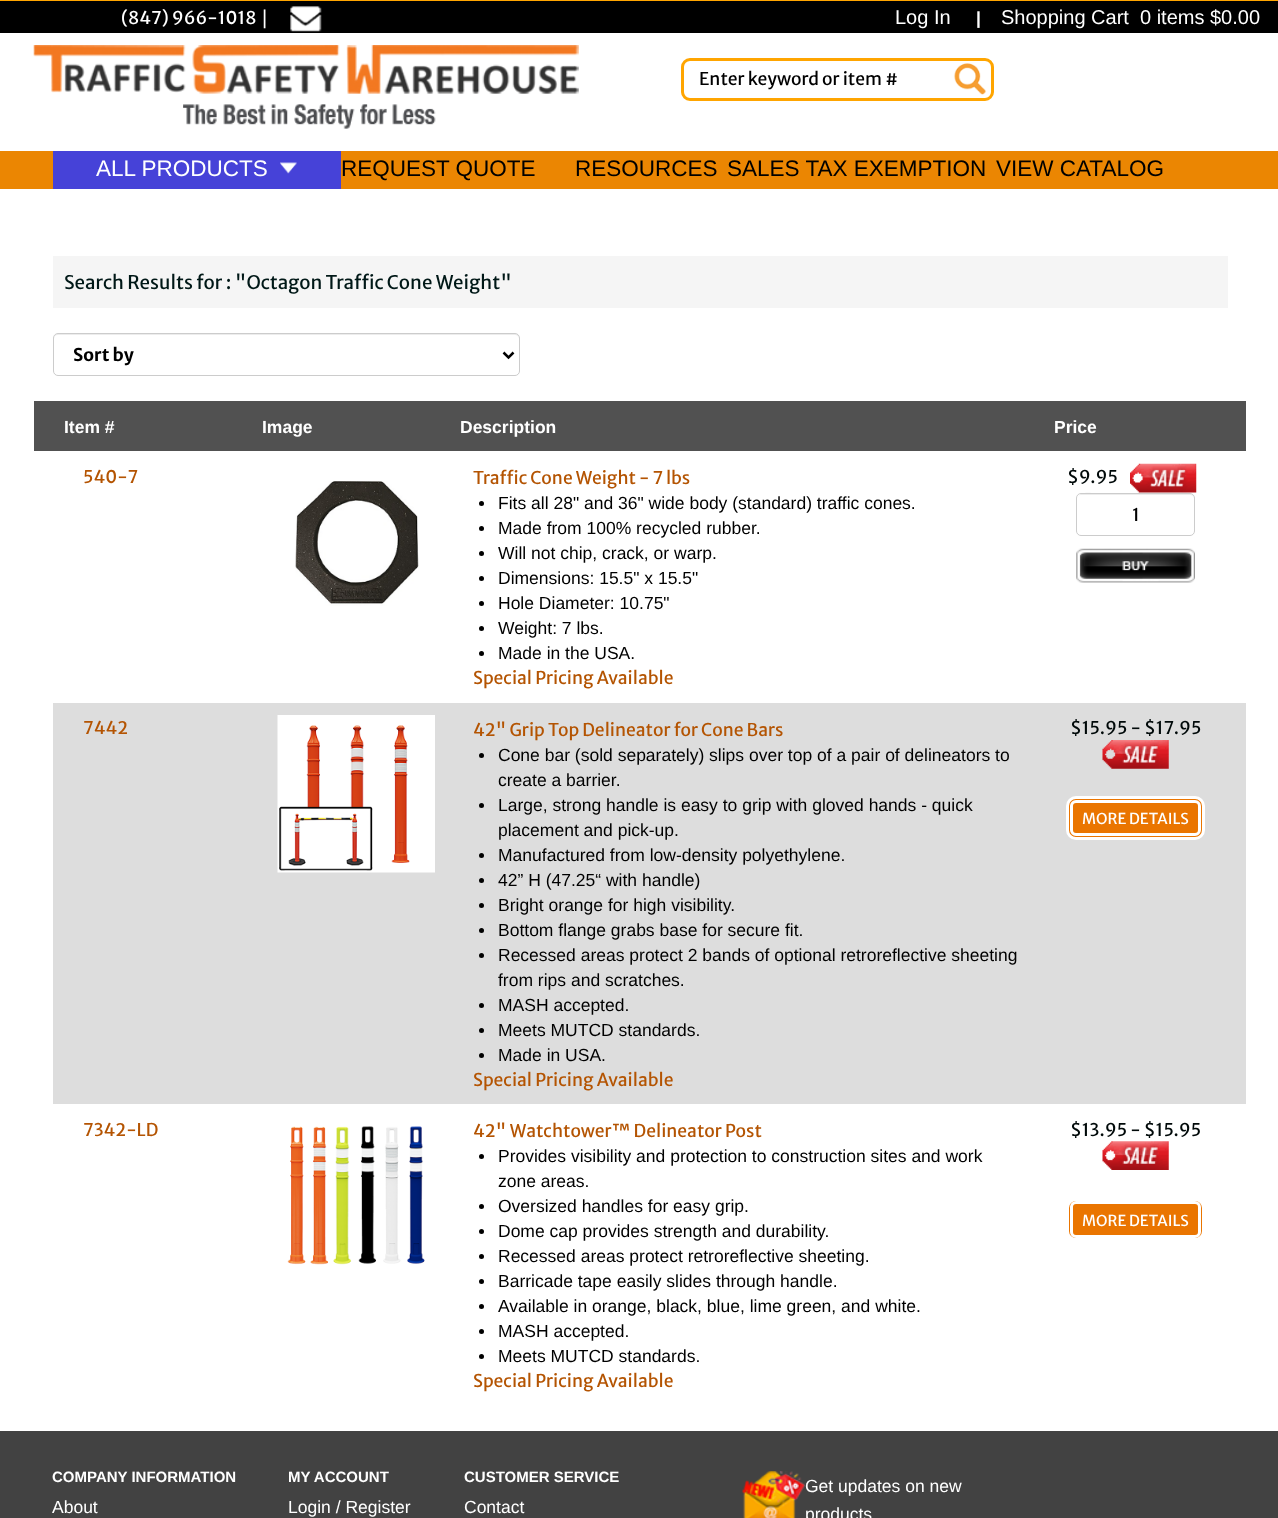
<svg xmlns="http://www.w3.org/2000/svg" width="1278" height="1518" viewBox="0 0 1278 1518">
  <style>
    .t1 { font: 17.5px Merriweather Sans; fill: #fff; }
    .t2 { font: 20px Liberation Sans; fill: #fff; }
    .t3 { font: bold 17.5px Liberation Sans; fill: #fff; }
    .t4 { font: 17.5px Merriweather Sans; fill: #000; }
    .t5 { font: 22.5px Liberation Sans; fill: #fff; }
    .t6 { font: 22.5px Liberation Sans; fill: #000; }
    .t7 { font: 18.75px Merriweather Sans; fill: #001817; }
    .t8 { font: bold 17.5px Merriweather Sans; fill: #000; }
    .t9 { font: 17.5px Merriweather Sans; fill: #b45402; }
    .t10 { font: 17.5px Liberation Sans; fill: #000; }
    .t11 { font: 17.5px Merriweather Sans; fill: #000909; }
    .t12 { font: 15px Merriweather Sans; fill: #fff; }
    .t13 { font: bold 15px Liberation Sans; fill: #fff; }
    .t14 { font: 17.5px Liberation Sans; fill: #fff; }
  </style>
  <rect width="100%" height="100%" fill="#fff"/>
  <rect x="0" y="0" width="1278" height="1" fill="#ffa500"/>
  <rect x="0" y="1" width="1278" height="32" fill="#000"/>
  <text x="121" y="24" class="t1">(847) 966-1018</text>
  <text x="262" y="24" class="t2">|</text>
  <image x="290" y="6" width="32" height="26" href="images/1.png"/>
  <text x="895" y="24" class="t2">Log In</text>
  <text x="976" y="24" class="t3">|</text>
  <text x="1001" y="24" class="t2" xml:space="preserve">Shopping Cart  0 items $0.00</text>
  <image x="33" y="45" width="546" height="84" href="images/2.png"/>
  <rect x="682.5" y="59.5" width="310" height="40" rx="7.5" fill="none" stroke="#ffa500" stroke-width="3"/>
  <text x="699" y="85" class="t4">Enter keyword or item #</text>
  <image x="953" y="63" width="34" height="32" href="images/3.png"/>
  <rect x="0" y="151" width="1278" height="38" fill="#eb8602"/>
  <rect x="53" y="151" width="288" height="38" fill="#4642d8"/>
  <text x="96" y="176" class="t5">ALL PRODUCTS</text>
  <image x="280" y="162" width="17" height="12" href="images/4.png"/>
  <text x="341" y="176" class="t6">REQUEST QUOTE</text>
  <text x="575" y="176" class="t6">RESOURCES</text>
  <text x="727" y="176" class="t6">SALES TAX EXEMPTION</text>
  <text x="996" y="176" class="t6">VIEW CATALOG</text>
  <rect x="53" y="256" width="1175" height="52" fill="#f5f5f5"/>
  <text x="64" y="289" class="t7">Search Results for : "Octagon Traffic Cone Weight"</text>
  <path d="M58 335H515C517 335 519 337 519 339C519 336 518 334 515 334H58C55 334 54 336 54 339C54 337 55 335 58 335Z" fill="#ececec"/>
  <rect x="53.5" y="333.5" width="466" height="42" rx="4.5" fill="none" stroke="#ccc"/>
  <path d="M503.5 352.5L508.5 357.5L513.5 352.5" fill="none" stroke="#000" stroke-width="2.5"/>
  <text x="73" y="361" class="t8">Sort by</text>
  <rect x="34" y="401" width="1212" height="50" fill="#515151"/>
  <text x="64" y="433" class="t3">Item #</text>
  <text x="262" y="433" class="t3">Image</text>
  <text x="460" y="433" class="t3">Description</text>
  <text x="1054" y="433" class="t3">Price</text>
  <text x="83" y="483" class="t9">540-7</text>
  <image x="295" y="481" width="124" height="125" href="images/5.png"/>
  <text x="473" y="484" class="t9">Traffic Cone Weight - 7 lbs</text>
  <circle cx="481.5" cy="503.5" r="2.5" fill="#000"/>
  <text x="498" y="509" class="t10">Fits all 28" and 36" wide body (standard) traffic cones.</text>
  <circle cx="481.5" cy="528.5" r="2.5" fill="#000"/>
  <text x="498" y="534" class="t10">Made from 100% recycled rubber.</text>
  <circle cx="481.5" cy="553.5" r="2.5" fill="#000"/>
  <text x="498" y="559" class="t10">Will not chip, crack, or warp.</text>
  <circle cx="481.5" cy="578.5" r="2.5" fill="#000"/>
  <text x="498" y="584" class="t10">Dimensions: 15.5" x 15.5"</text>
  <circle cx="481.5" cy="603.5" r="2.5" fill="#000"/>
  <text x="498" y="609" class="t10">Hole Diameter: 10.75"</text>
  <circle cx="481.5" cy="628.5" r="2.5" fill="#000"/>
  <text x="498" y="634" class="t10">Weight: 7 lbs.</text>
  <circle cx="481.5" cy="653.5" r="2.5" fill="#000"/>
  <text x="498" y="659" class="t10">Made in the USA.</text>
  <text x="473" y="684" class="t9">Special Pricing Available</text>
  <text x="1067" y="483" class="t11">$9.95</text>
  <path d="M1081 495H1190C1192 495 1194 497 1194 499C1194 489 1175 494 1172 494H1100C1097 494 1078 489 1078 499C1078 497 1079 495 1081 495Z" fill="#ececec"/>
  <image x="1130" y="463" width="67" height="30" href="images/6.png"/>
  <rect x="1076.5" y="493.5" width="118" height="42" rx="4.5" fill="none" stroke="#ccc"/>
  <text x="1132" y="521" class="t4">1</text>
  <image x="1076" y="548" width="119" height="35" href="images/7.png"/>
  <rect x="53" y="703" width="1193" height="401" fill="#ddd"/>
  <text x="83" y="734" class="t9">7442</text>
  <image x="277" y="715" width="158" height="158" href="images/8.png"/>
  <text x="473" y="736" class="t9">42" Grip Top Delineator for Cone Bars</text>
  <circle cx="481.5" cy="755.5" r="2.5" fill="#000"/>
  <text x="498" y="761" class="t10">Cone bar (sold separately) slips over top of a pair of delineators to</text>
  <text x="498" y="786" class="t10">create a barrier.</text>
  <circle cx="481.5" cy="805.5" r="2.5" fill="#000"/>
  <text x="498" y="811" class="t10">Large, strong handle is easy to grip with gloved hands - quick</text>
  <text x="498" y="836" class="t10">placement and pick-up.</text>
  <circle cx="481.5" cy="855.5" r="2.5" fill="#000"/>
  <text x="498" y="861" class="t10">Manufactured from low-density polyethylene.</text>
  <circle cx="481.5" cy="880.5" r="2.5" fill="#000"/>
  <text x="498" y="886" class="t10">42” H (47.25“ with handle)</text>
  <circle cx="481.5" cy="905.5" r="2.5" fill="#000"/>
  <text x="498" y="911" class="t10">Bright orange for high visibility.</text>
  <circle cx="481.5" cy="930.5" r="2.5" fill="#000"/>
  <text x="498" y="936" class="t10">Bottom flange grabs base for secure fit.</text>
  <circle cx="481.5" cy="955.5" r="2.5" fill="#000"/>
  <text x="498" y="961" class="t10">Recessed areas protect 2 bands of optional retroreflective sheeting</text>
  <text x="498" y="986" class="t10">from rips and scratches.</text>
  <circle cx="481.5" cy="1005.5" r="2.5" fill="#000"/>
  <text x="498" y="1011" class="t10">MASH accepted.</text>
  <circle cx="481.5" cy="1030.5" r="2.5" fill="#000"/>
  <text x="498" y="1036" class="t10">Meets MUTCD standards.</text>
  <circle cx="481.5" cy="1055.5" r="2.5" fill="#000"/>
  <text x="498" y="1061" class="t10">Made in USA.</text>
  <text x="473" y="1086" class="t9">Special Pricing Available</text>
  <text x="1070" y="734" class="t11">$15.95 - $17.95</text>
  <image x="1102" y="740" width="67" height="29" href="images/9.png"/>
  <rect x="1067.5" y="797.5" width="136" height="41" rx="8.5" fill="#ea7500" stroke="#fff" stroke-width="3"/>
  <rect x="1071.5" y="801.5" width="128" height="33" rx="4.5" fill="none" stroke="#fff" stroke-width="3"/>
  <text x="1082" y="824" class="t12">MORE DETAILS</text>
  <text x="83" y="1136" class="t9">7342-LD</text>
  <image x="287" y="1126" width="138" height="139" href="images/10.png"/>
  <text x="473" y="1137" class="t9">42" Watchtower™ Delineator Post</text>
  <circle cx="481.5" cy="1156.5" r="2.5" fill="#000"/>
  <text x="498" y="1162" class="t10">Provides visibility and protection to construction sites and work</text>
  <text x="498" y="1187" class="t10">zone areas.</text>
  <circle cx="481.5" cy="1206.5" r="2.5" fill="#000"/>
  <text x="498" y="1212" class="t10">Oversized handles for easy grip.</text>
  <circle cx="481.5" cy="1231.5" r="2.5" fill="#000"/>
  <text x="498" y="1237" class="t10">Dome cap provides strength and durability.</text>
  <circle cx="481.5" cy="1256.5" r="2.5" fill="#000"/>
  <text x="498" y="1262" class="t10">Recessed areas protect retroreflective sheeting.</text>
  <circle cx="481.5" cy="1281.5" r="2.5" fill="#000"/>
  <text x="498" y="1287" class="t10">Barricade tape easily slides through handle.</text>
  <circle cx="481.5" cy="1306.5" r="2.5" fill="#000"/>
  <text x="498" y="1312" class="t10">Available in orange, black, blue, lime green, and white.</text>
  <circle cx="481.5" cy="1331.5" r="2.5" fill="#000"/>
  <text x="498" y="1337" class="t10">MASH accepted.</text>
  <circle cx="481.5" cy="1356.5" r="2.5" fill="#000"/>
  <text x="498" y="1362" class="t10">Meets MUTCD standards.</text>
  <text x="473" y="1387" class="t9">Special Pricing Available</text>
  <text x="1070" y="1136" class="t11">$13.95 - $15.95</text>
  <image x="1102" y="1141" width="67" height="29" href="images/11.png"/>
  <rect x="1067.5" y="1199.5" width="136" height="40" rx="8.5" fill="#ea7500" stroke="#fff" stroke-width="3"/>
  <rect x="1071.5" y="1202.5" width="128" height="34" rx="4.5" fill="none" stroke="#fff" stroke-width="3"/>
  <text x="1082" y="1226" class="t12">MORE DETAILS</text>
  <rect x="0" y="1431" width="1278" height="87" fill="#424242"/>
  <text x="52" y="1482" class="t13">COMPANY INFORMATION</text>
  <text x="52" y="1513" class="t14">About</text>
  <text x="288" y="1482" class="t13">MY ACCOUNT</text>
  <text x="288" y="1513" class="t14">Login / Register</text>
  <text x="464" y="1482" class="t13">CUSTOMER SERVICE</text>
  <text x="464" y="1513" class="t14">Contact</text>
  <image x="742" y="1471" width="63" height="47" href="images/12.png"/>
  <text x="805" y="1492" class="t14">Get updates on new</text>
  <text x="805" y="1520" class="t14">products</text>
</svg>
